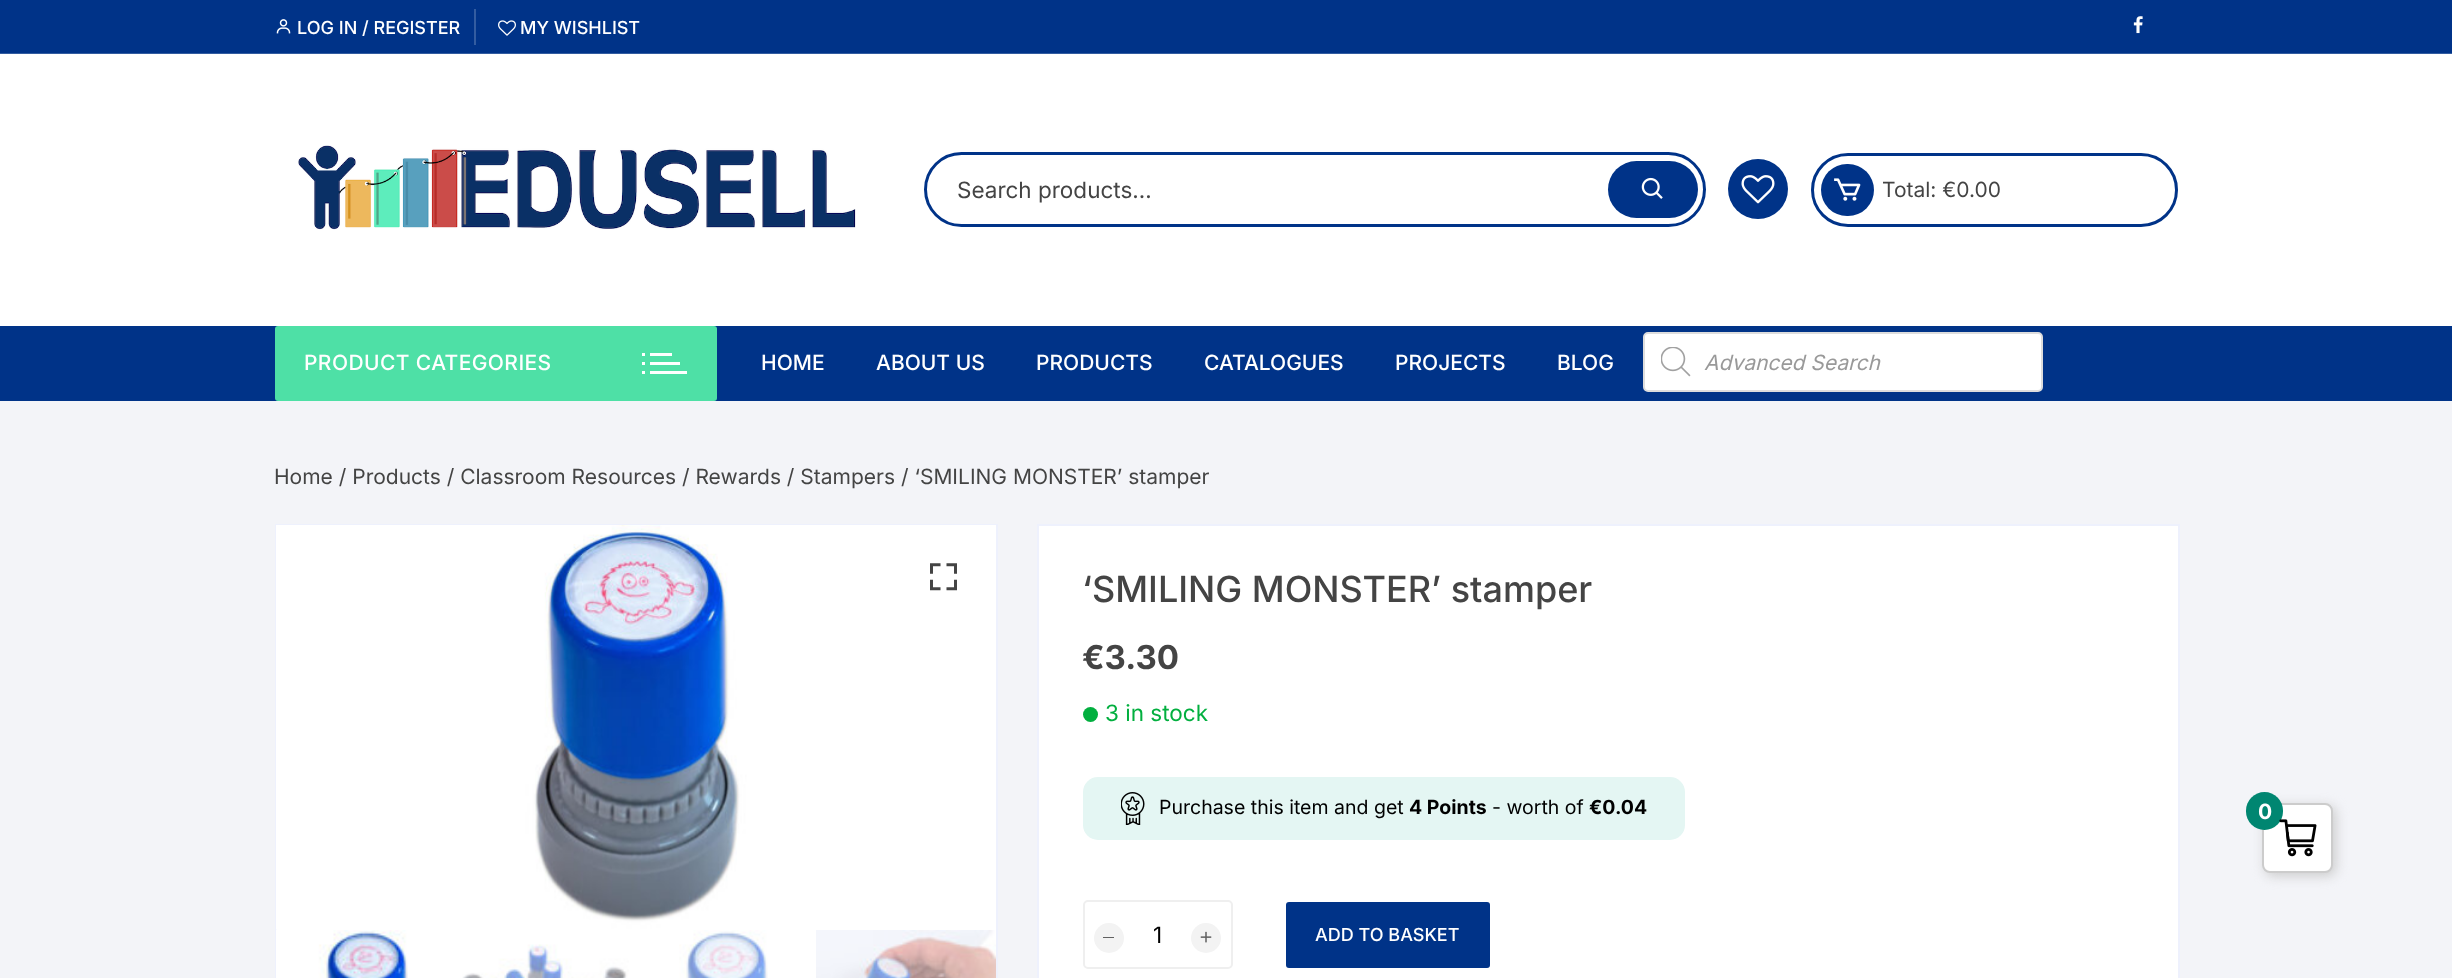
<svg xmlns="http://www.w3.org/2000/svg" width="2452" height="978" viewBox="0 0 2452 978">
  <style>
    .t1 { font: 500 18px Inter; fill: #fff; }
    .t2 { font: 22.5px Inter; fill: #444; }
    .t3 { font: 21px Inter; fill: #444; }
    .t4 { font: 500 21px Inter; letter-spacing: 0.4px; fill: #fff; }
    .t5 { font: 500 21px Inter; fill: #fff; }
    .t6 { font: italic 21px Inter; fill: #999; }
    .t7 { font: 500 36px Inter; fill: #444; }
    .t8 { font: bold 33px Inter; fill: #444; }
    .t9 { font: 22.5px Inter; fill: #02af3f; }
    .t10 { font: 19.5px Inter; fill: #000; }
    .t11 { font: bold 19.5px Inter; fill: #000; }
    .t12 { font: 22.5px Inter; fill: #000; }
    .t13 { font: bold 21px Inter; fill: #fff; }
  </style>
  <rect width="100%" height="100%" fill="#f3f4f8"/>
  <rect x="0" y="54" width="2452" height="272" fill="#fff"/>
  <rect x="0" y="0" width="2452" height="53" fill="#038"/>
  <rect x="0" y="53" width="2452" height="1" fill="#335ca0"/>
  <rect x="474" y="9" width="2" height="36" fill="#335ca0"/>
  <image x="276" y="19" width="15" height="15" href="images/1.png"/>
  <text x="297" y="34" class="t1">LOG IN / REGISTER</text>
  <image x="498" y="20" width="18" height="16" href="images/2.png"/>
  <text x="520" y="34" class="t1">MY WISHLIST</text>
  <image x="2133" y="16" width="10" height="18" href="images/3.png"/>
  <image x="298" y="145" width="558" height="85" href="images/4.png"/>
  <rect x="925.5" y="153.5" width="779" height="72" rx="36" fill="none" stroke="#038" stroke-width="3"/>
  <text x="957" y="198" class="t2">Search products…</text>
  <rect x="1608" y="161" width="90" height="57" rx="28.5" fill="#038"/>
  <image x="1641" y="177" width="22" height="22" href="images/5.png"/>
  <circle cx="1758" cy="189" r="30" fill="#038"/>
  <image x="1741" y="175" width="34" height="29" href="images/6.png"/>
  <rect x="1812.5" y="154.5" width="364" height="71" rx="35.5" fill="none" stroke="#038" stroke-width="3"/>
  <rect x="1821" y="164" width="53" height="52" rx="26" fill="#038"/>
  <image x="1834" y="178" width="27" height="23" href="images/7.png"/>
  <text x="1882" y="197" class="t3">Total: €0.00</text>
  <rect x="0" y="326" width="2452" height="75" fill="#038"/>
  <rect x="275" y="326" width="442" height="75" rx="3" fill="#4ee0a6"/>
  <text x="304" y="370" class="t4">PRODUCT CATEGORIES</text>
  <rect x="650" y="353" width="22" height="3" fill="#fff"/>
  <rect x="642" y="353" width="3" height="3" fill="#fff"/>
  <rect x="650" y="362" width="30" height="3" fill="#fff"/>
  <rect x="642" y="362" width="3" height="3" fill="#fff"/>
  <rect x="650" y="371" width="37" height="3" fill="#fff"/>
  <rect x="642" y="371" width="3" height="3" fill="#fff"/>
  <text x="761" y="370" class="t5">HOME</text>
  <text x="876" y="370" class="t5">ABOUT US</text>
  <text x="1036" y="370" class="t5">PRODUCTS</text>
  <text x="1204" y="370" class="t5">CATALOGUES</text>
  <text x="1395" y="370" class="t5">PROJECTS</text>
  <text x="1557" y="370" class="t5">BLOG</text>
  <rect x="1644" y="333" width="398" height="58" rx="4" fill="#fff" stroke="#ddd" stroke-width="2"/>
  <image x="1661" y="347" width="30" height="30" href="images/8.png"/>
  <text x="1704" y="370" class="t6">Advanced Search</text>
  <text x="274" y="484" class="t3">Home / Products / Classroom Resources / Rewards / Stampers / ‘SMILING MONSTER’ stamper</text>
  <rect x="277" y="929" width="719" height="49" fill="#fff"/>
  <rect x="276" y="525" width="721" height="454" fill="none" stroke="#eef1fd" stroke-width="2"/>
  <image x="276" y="525" width="720" height="405" href="images/9.png"/>
  <image x="930" y="563" width="27" height="28" href="images/10.png"/>
  <image x="276" y="930" width="132" height="48" href="images/11.png"/>
  <image x="462" y="944" width="167" height="34" href="images/12.png"/>
  <image x="679" y="930" width="89" height="48" href="images/13.png"/>
  <image x="816" y="930" width="180" height="48" href="images/14.png"/>
  <rect x="1038" y="525" width="1141" height="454" fill="#fff" stroke="#eef1fd" stroke-width="2"/>
  <text x="1082" y="602" class="t7">‘SMILING MONSTER’ stamper</text>
  <text x="1082" y="669" class="t8">€3.30</text>
  <circle cx="1090.5" cy="714.5" r="7.5" fill="#02af3f"/>
  <text x="1105" y="721" class="t9">3 in stock</text>
  <rect x="1083" y="777" width="602" height="63" rx="15" fill="#e4f6f3"/>
  <image x="1121" y="792" width="24" height="33" href="images/15.png"/>
  <text x="1159" y="814" class="t10">Purchase this item and get</text>
  <text x="1409" y="814" class="t11">4 Points</text>
  <text x="1492" y="814" class="t10">- worth of</text>
  <text x="1589" y="814" class="t11">€0.04</text>
  <rect x="1084" y="901" width="148" height="67" rx="4" fill="none" stroke="#efefef" stroke-width="2"/>
  <circle cx="1109" cy="938" r="15" fill="#f3f3f3"/>
  <rect x="1103" y="937" width="11" height="1" fill="#616161"/>
  <text x="1153" y="943" class="t12">1</text>
  <circle cx="1206" cy="938" r="15" fill="#f3f3f3"/>
  <image x="1200" y="931" width="12" height="12" href="images/16.png"/>
  <rect x="1286" y="902" width="204" height="66" rx="3" fill="#038"/>
  <text x="1315" y="941" class="t1">ADD TO BASKET</text>
  <rect x="2265" y="806" width="71" height="70" rx="8" fill="#ccc" filter="blur(6px)"/>
  <rect x="2263" y="804" width="69" height="68" rx="7" fill="#fff" stroke="#ccc" stroke-width="2"/>
  <rect x="2246" y="792" width="37" height="38" rx="18.5" fill="#008671"/>
  <text x="2258" y="819" class="t13">0</text>
  <image x="2279" y="819" width="38" height="38" href="images/17.png"/>
</svg>
